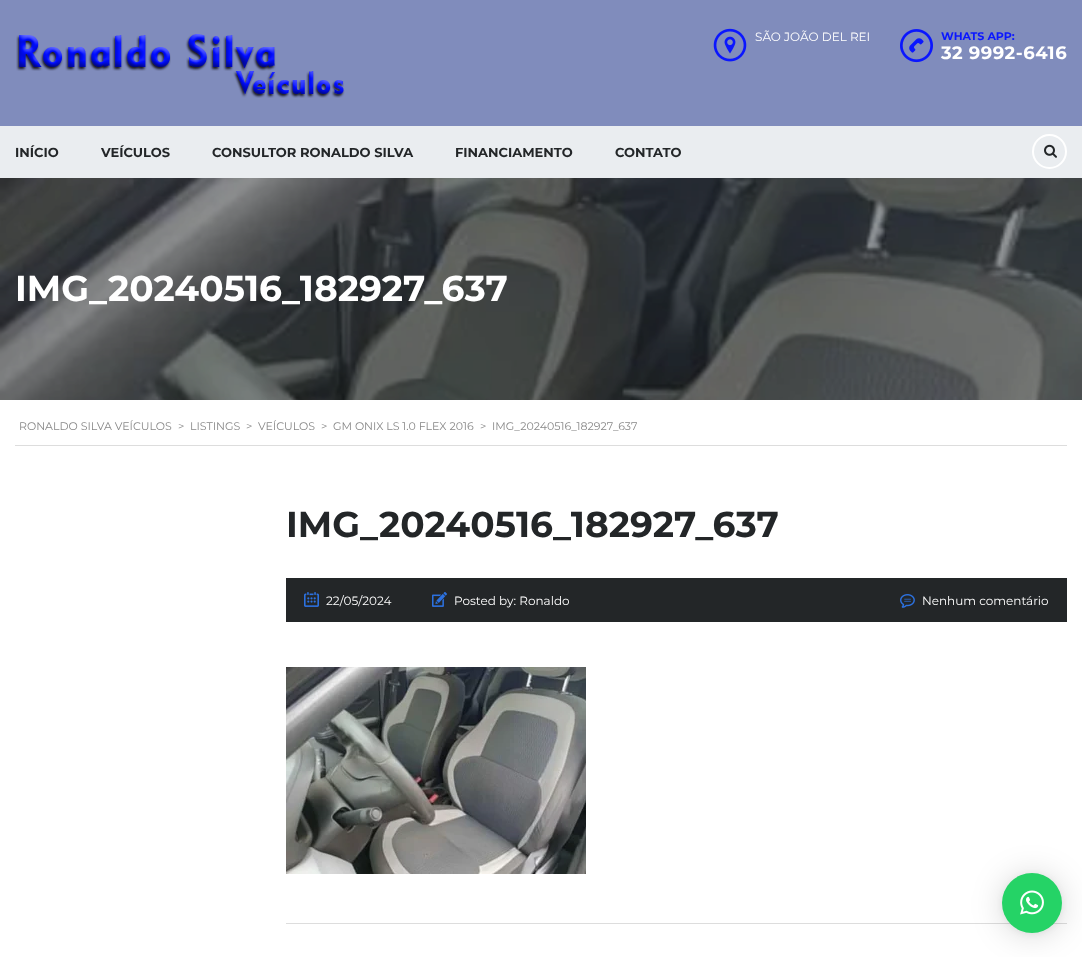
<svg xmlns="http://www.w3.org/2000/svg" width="1082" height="957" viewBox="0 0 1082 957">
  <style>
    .t1 { font: 12px Montserrat; fill: #fff; }
    .t2 { font: bold 11px Montserrat; fill: #0a16ff; }
    .t3 { font: bold 18px Montserrat; letter-spacing: 0.5px; fill: #fff; }
    .t4 { font: bold 13px Montserrat; fill: #232628; }
    .t5 { font: bold 36px Montserrat; fill: #fff; }
    .t6 { font: 11px Montserrat; fill: #888; }
    .t7 { font: bold 36px Montserrat; fill: #232628; }
  </style>
  <rect width="100%" height="100%" fill="#fff"/>
  <rect x="0" y="0" width="1082" height="126" fill="#808cbc"/>
  <image x="16" y="34" width="329" height="64" href="images/1.png"/>
  <image x="713" y="28" width="34" height="34" href="images/2.png"/>
  <text x="755" y="41" class="t1">SÃO JOÃO DEL REI</text>
  <image x="900" y="29" width="33" height="34" href="images/3.png"/>
  <text x="941" y="40" class="t2">WHATS APP:</text>
  <text x="941" y="59" class="t3">32 9992-6416</text>
  <rect x="0" y="126" width="1082" height="52" fill="#eaedf0"/>
  <text x="15" y="157" class="t4">INÍCIO</text>
  <text x="101" y="157" class="t4">VEÍCULOS</text>
  <text x="212" y="157" class="t4">CONSULTOR RONALDO SILVA</text>
  <text x="455" y="157" class="t4">FINANCIAMENTO</text>
  <text x="615" y="157" class="t4">CONTATO</text>
  <circle cx="1049.5" cy="151.5" r="16.5" fill="none" stroke="#fff" stroke-width="2"/>
  <image x="1044" y="144" width="13" height="14" href="images/4.png"/>
  <image x="0" y="178" width="1082" height="222" href="images/5.png"/>
  <text x="15" y="301" class="t5">IMG_20240516_182927_637</text>
  <rect x="15" y="445" width="1052" height="1" fill="#ddd"/>
  <text x="19" y="430" class="t6">RONALDO SILVA VEÍCULOS</text>
  <text x="178" y="430" class="t6">&gt;</text>
  <text x="190" y="430" class="t6">LISTINGS</text>
  <text x="246" y="430" class="t6">&gt;</text>
  <text x="258" y="430" class="t6">VEÍCULOS</text>
  <text x="321" y="430" class="t6">&gt;</text>
  <text x="333" y="430" class="t6">GM ONIX LS 1.0 FLEX 2016</text>
  <text x="480" y="430" class="t6">&gt;</text>
  <text x="492" y="430" class="t6">IMG_20240516_182927_637</text>
  <text x="286" y="537" class="t7">IMG_20240516_182927_637</text>
  <rect x="286" y="578" width="781" height="44" fill="#232628"/>
  <image x="304" y="592" width="15" height="15" href="images/6.png"/>
  <text x="326" y="605" class="t1">22/05/2024</text>
  <image x="432" y="592" width="15" height="15" href="images/7.png"/>
  <text x="454" y="605" class="t1">Posted by: Ronaldo</text>
  <image x="900" y="594" width="15" height="14" href="images/8.png"/>
  <text x="922" y="605" class="t1">Nenhum comentário</text>
  <rect x="286" y="923" width="781" height="1" fill="#ddd"/>
  <image x="286" y="667" width="300" height="207" href="images/9.png"/>
  <rect x="1002" y="875" width="60" height="60" rx="30" fill="#00000029" filter="blur(16px)"/>
  <rect x="1002" y="874" width="60" height="60" rx="30" fill="#0000000f" filter="blur(3px)"/>
  <circle cx="1032" cy="903" r="30" fill="#25d366"/>
  <image x="1020" y="890" width="24" height="25" href="images/10.png"/>
</svg>
